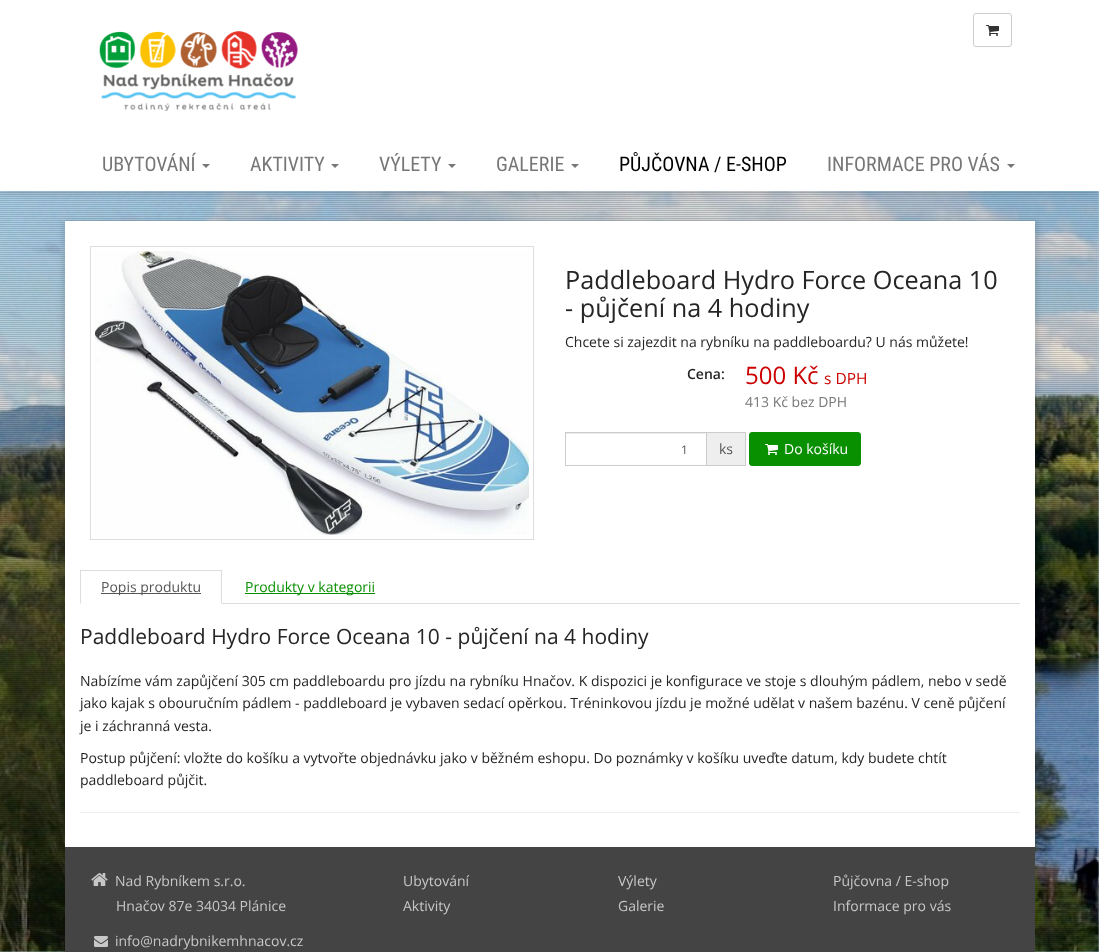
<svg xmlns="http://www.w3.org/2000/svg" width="1099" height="952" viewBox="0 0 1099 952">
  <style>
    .t1 { font: 20px Roboto Condensed; fill: #777; }
    .t2 { font: 20px Roboto Condensed; fill: #000; }
    .t3 { font: 25.25px Open Sans; fill: #252525; }
    .t4 { font: 14px Open Sans; fill: #252525; }
    .t5 { font: 600 14px Open Sans; fill: #252525; }
    .t6 { font: 24px Open Sans; fill: #c00; }
    .t7 { font: 15.5px Open Sans; fill: #c00; }
    .t8 { font: 14px Open Sans; fill: #777; }
    .t9 { font: 12px Open Sans; fill: #555; }
    .t10 { font: 14px Open Sans; fill: #555; }
    .t11 { font: 14px Open Sans; fill: #fff; }
    .t12 { font: 14px Open Sans; fill: #099000; }
    .t13 { font: 21px Open Sans; fill: #252525; }
    .t14 { font: 14px Open Sans; fill: #c7c7c7; }
  </style>
  <rect width="100%" height="100%" fill="#b9e1fa"/>
  <image x="0" y="191" width="1099" height="761" href="images/1.png"/>
  <image x="0" y="192" width="1099" height="759" href="images/2.png"/>
  <rect x="0" y="0" width="1099" height="191" fill="#00000033" filter="blur(5px)"/>
  <rect x="0" y="0" width="1099" height="191" fill="#fff"/>
  <image x="99" y="31" width="199" height="80" href="images/3.png"/>
  <rect x="973.5" y="13.5" width="38" height="33" rx="2.5" fill="none" stroke="#ccc"/>
  <image x="986" y="25" width="13" height="11" href="images/4.png"/>
  <text x="102" y="171" class="t1">UBYTOVÁNÍ</text>
  <path d="M202 164H210L206 168Z" fill="#777"/>
  <text x="250" y="171" class="t1">AKTIVITY</text>
  <path d="M331 164H339L335 168Z" fill="#777"/>
  <text x="379" y="171" class="t1">VÝLETY</text>
  <path d="M448 164H456L452 168Z" fill="#777"/>
  <text x="496" y="171" class="t1">GALERIE</text>
  <path d="M571 164H579L575 168Z" fill="#777"/>
  <text x="619" y="171" class="t2">PŮJČOVNA / E-SHOP</text>
  <text x="827" y="171" class="t1">INFORMACE PRO VÁS</text>
  <path d="M1007 164H1015L1011 168Z" fill="#777"/>
  <rect x="62" y="221" width="976" height="632" fill="#0000001a" filter="blur(2.5px)"/>
  <rect x="65" y="221" width="970" height="626" fill="#fff"/>
  <rect x="90.5" y="246.5" width="443" height="293" fill="none" stroke="#ddd"/>
  <image x="95" y="251" width="434" height="284" href="images/5.png"/>
  <text x="565" y="289" class="t3">Paddleboard Hydro Force Oceana 10</text>
  <text x="565" y="317" class="t3">- půjčení na 4 hodiny</text>
  <text x="565" y="347" class="t4">Chcete si zajezdit na rybníku na paddleboardu? U nás můžete!</text>
  <text x="687" y="379" class="t5">Cena:</text>
  <text x="745" y="384" class="t6">500 Kč</text>
  <text x="824" y="384" class="t7">s DPH</text>
  <text x="745" y="407" class="t8">413 Kč bez DPH</text>
  <rect x="566" y="433" width="140" height="1" fill="#ececec"/>
  <rect x="565.5" y="432.5" width="141" height="33" fill="none" stroke="#ccc"/>
  <text x="681" y="454" class="t9">1</text>
  <rect x="707" y="433" width="38" height="32" fill="#eee"/>
  <rect x="707" y="432" width="39" height="1" fill="#ccc"/>
  <rect x="745" y="432" width="1" height="34" fill="#ccc"/>
  <rect x="707" y="465" width="39" height="1" fill="#ccc"/>
  <text x="719" y="454" class="t10">ks</text>
  <rect x="749.5" y="432.5" width="111" height="33" rx="2.5" fill="#099000" stroke="#099000"/>
  <image x="765" y="444" width="13" height="11" href="images/6.png"/>
  <text x="784" y="454" class="t11">Do košíku</text>
  <rect x="222" y="603" width="798" height="1" fill="#ddd"/>
  <rect x="80" y="570" width="142" height="1" fill="#ddd"/>
  <path d="M222 570V604L221 603V571Z" fill="#ddd"/>
  <path d="M80 604V570L81 571V603Z" fill="#ddd"/>
  <rect x="101" y="593" width="100" height="1" fill="#555"/>
  <text x="101" y="592" class="t10">Popis produktu</text>
  <rect x="245" y="593" width="130" height="1" fill="#099000"/>
  <text x="245" y="592" class="t12">Produkty v kategorii</text>
  <text x="80" y="644" class="t13">Paddleboard Hydro Force Oceana 10 - půjčení na 4 hodiny</text>
  <text x="80" y="686" class="t4">Nabízíme vám zapůjčení 305 cm paddleboardu pro jízdu na rybníku Hnačov. K dispozici je konfigurace ve stoje s dlouhým pádlem, nebo v sedě</text>
  <text x="80" y="708" class="t4">jako kajak s obouručním pádlem - paddleboard je vybaven sedací opěrkou. Tréninkovou jízdu je možné udělat v našem bazénu. V ceně půjčení</text>
  <text x="80" y="731" class="t4">je i záchranná vesta.</text>
  <text x="80" y="763" class="t4">Postup půjčení: vložte do košíku a vytvořte objednávku jako v běžném eshopu. Do poznámky v košíku uveďte datum, kdy budete chtít</text>
  <text x="80" y="785" class="t4">paddleboard půjčit.</text>
  <rect x="80" y="812" width="940" height="1" fill="#eee"/>
  <rect x="65" y="847" width="970" height="105" fill="#444"/>
  <image x="91" y="873" width="17" height="13" href="images/7.png"/>
  <text x="115" y="886" class="t14">Nad Rybníkem s.r.o.</text>
  <text x="116" y="911" class="t14">Hnačov 87e 34034 Plánice</text>
  <image x="94" y="936" width="14" height="11" href="images/8.png"/>
  <text x="115" y="946" class="t14">info@nadrybnikemhnacov.cz</text>
  <text x="403" y="886" class="t14">Ubytování</text>
  <text x="618" y="886" class="t14">Výlety</text>
  <text x="833" y="886" class="t14">Půjčovna / E-shop</text>
  <text x="403" y="911" class="t14">Aktivity</text>
  <text x="618" y="911" class="t14">Galerie</text>
  <text x="833" y="911" class="t14">Informace pro vás</text>
</svg>
